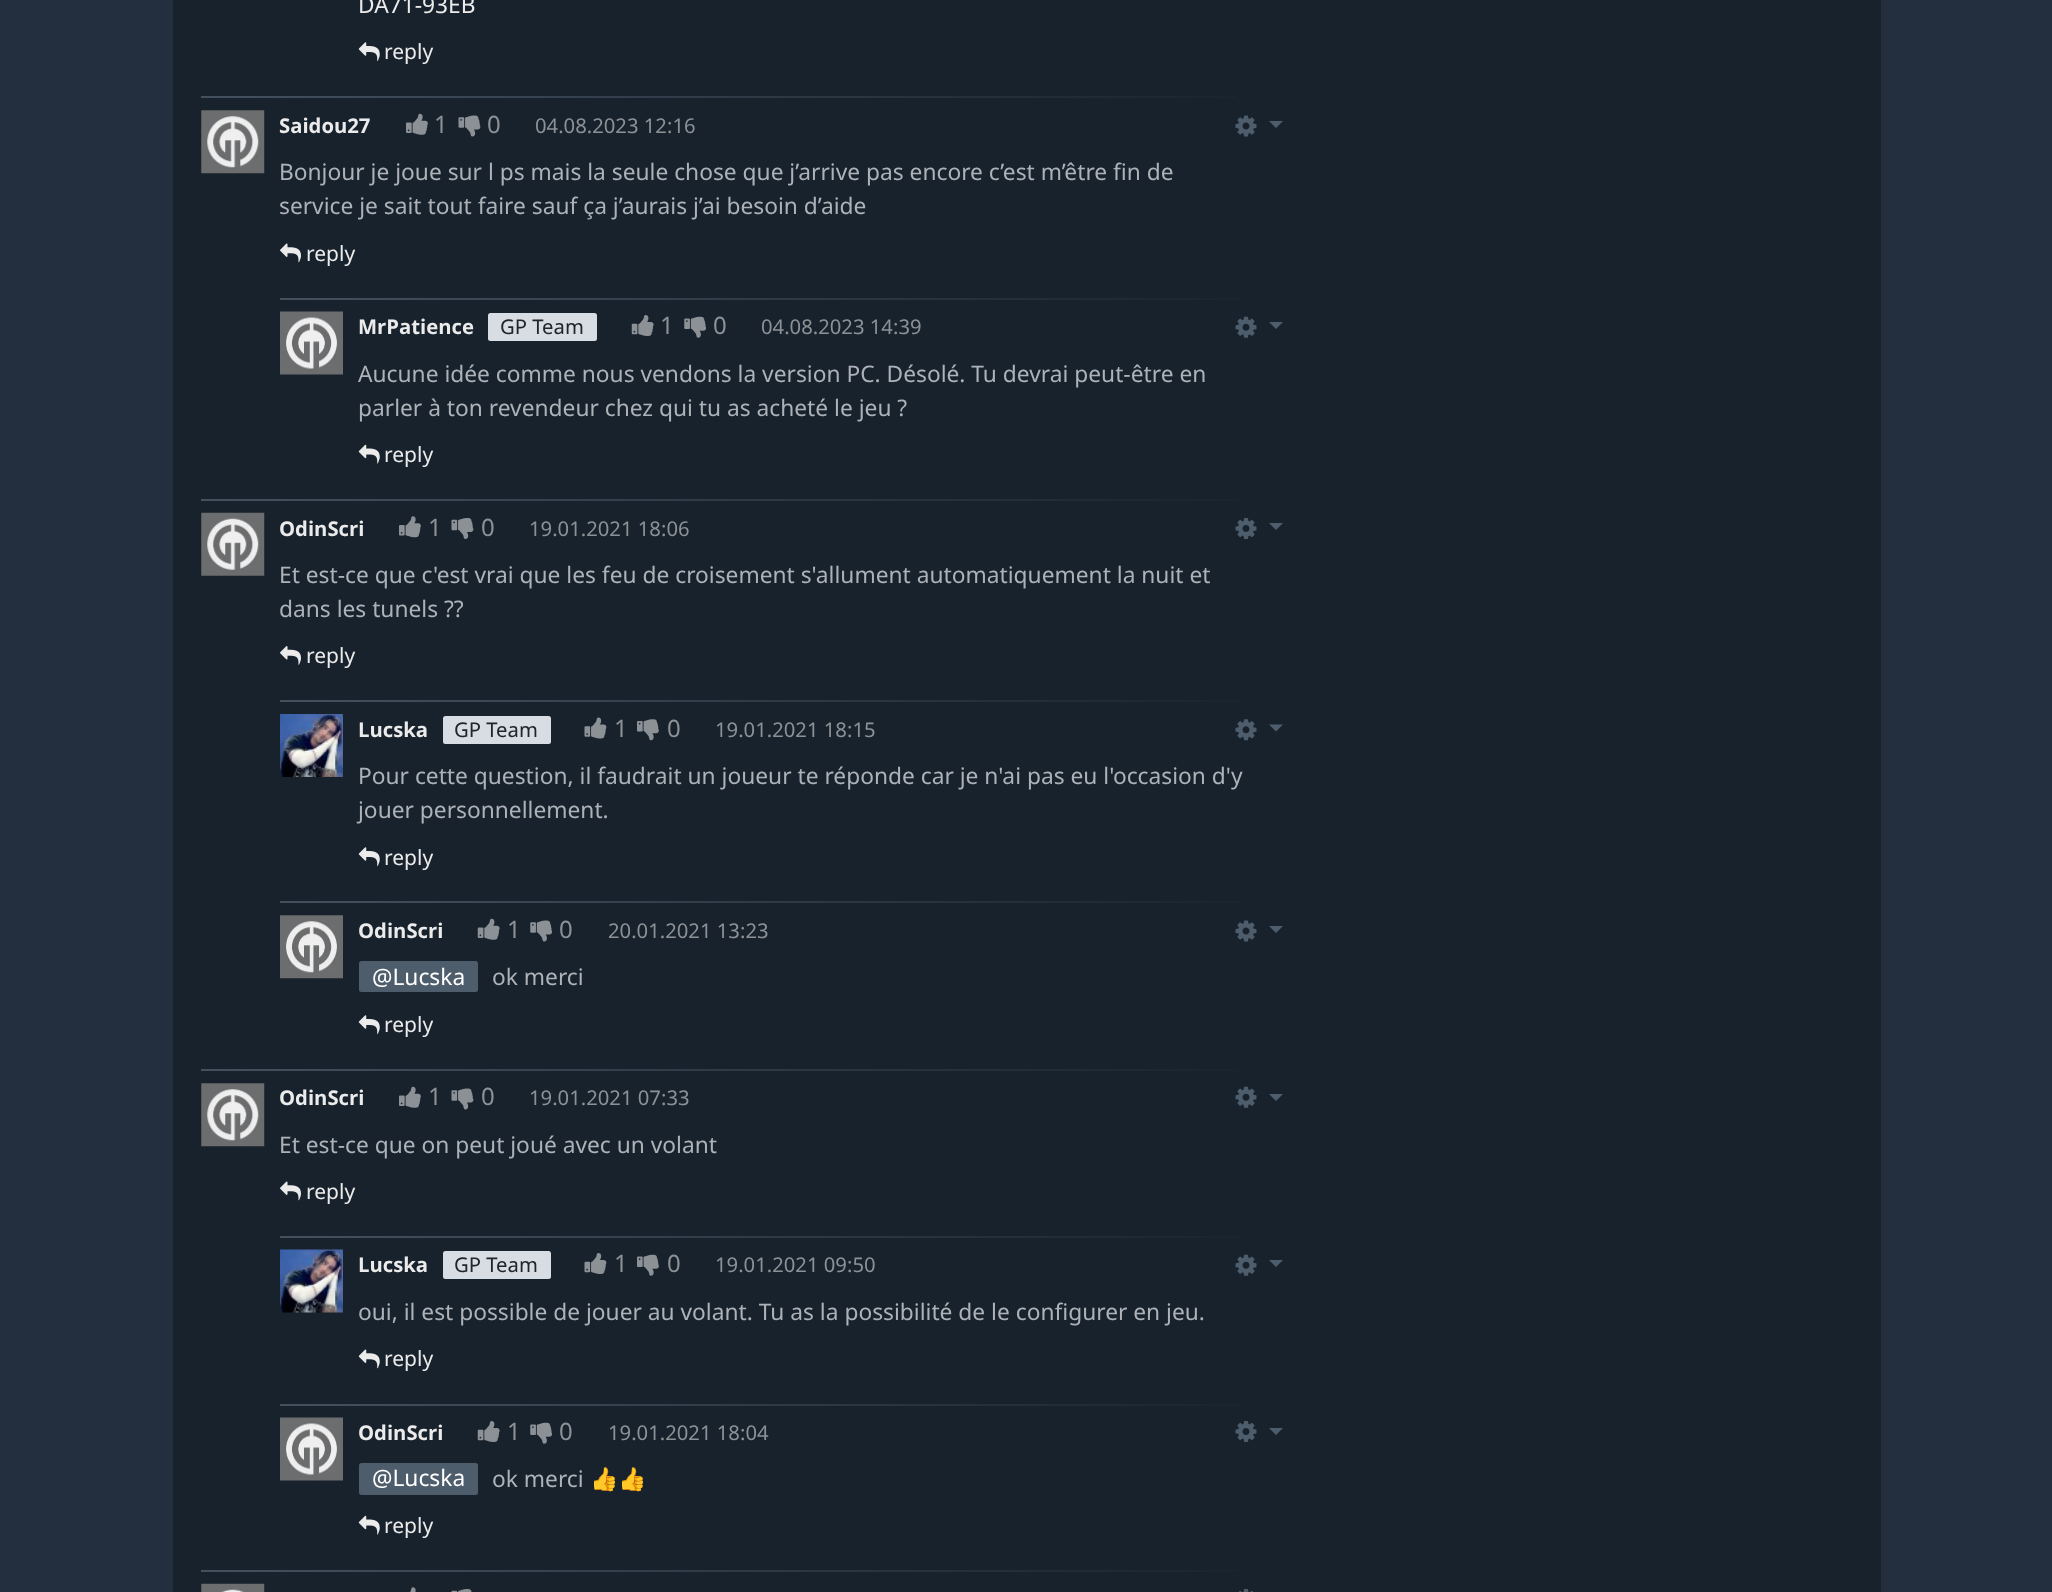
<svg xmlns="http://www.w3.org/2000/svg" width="2052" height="1592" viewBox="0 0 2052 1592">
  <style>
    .t1 { font: 22.75px Noto Sans; fill: #ebebeb; }
    .t2 { font: 21px Noto Sans; fill: #ebebeb; }
    .t3 { font: bold 20.25px Noto Sans; fill: #ebebeb; }
    .t4 { font: 24px Noto Sans; fill: #8c9196; }
    .t5 { font: 20.25px Noto Sans; fill: #8c9196; }
    .t6 { font: 22.75px Noto Sans; fill: #acb2b8; }
    .t7 { font: 20.25px Noto Sans; fill: #212529; }
    .t8 { font: 22.75px Noto Sans; fill: #fff; }
    .t9 { font: 22.75px Noto Color Emoji; fill: #acb2b8; }
  </style>
  <defs>
    <linearGradient id="g1" gradientUnits="userSpaceOnUse" x1="201" y1="97" x2="1292" y2="97"><stop offset="0" stop-color="#43515f"/><stop offset="1" stop-color="#18222d"/></linearGradient>
    <linearGradient id="g2" gradientUnits="userSpaceOnUse" x1="280" y1="298" x2="1292" y2="298"><stop offset="0" stop-color="#43515f"/><stop offset="1" stop-color="#18222d"/></linearGradient>
    <linearGradient id="g3" gradientUnits="userSpaceOnUse" x1="201" y1="500" x2="1292" y2="500"><stop offset="0" stop-color="#43515f"/><stop offset="1" stop-color="#18222d"/></linearGradient>
    <linearGradient id="g4" gradientUnits="userSpaceOnUse" x1="280" y1="701" x2="1292" y2="701"><stop offset="0" stop-color="#43515f"/><stop offset="1" stop-color="#18222d"/></linearGradient>
    <linearGradient id="g5" gradientUnits="userSpaceOnUse" x1="280" y1="902" x2="1292" y2="902"><stop offset="0" stop-color="#43515f"/><stop offset="1" stop-color="#18222d"/></linearGradient>
    <linearGradient id="g6" gradientUnits="userSpaceOnUse" x1="201" y1="1070" x2="1292" y2="1070"><stop offset="0" stop-color="#43515f"/><stop offset="1" stop-color="#18222d"/></linearGradient>
    <linearGradient id="g7" gradientUnits="userSpaceOnUse" x1="280" y1="1236" x2="1292" y2="1236"><stop offset="0" stop-color="#43515f"/><stop offset="1" stop-color="#18222d"/></linearGradient>
    <linearGradient id="g8" gradientUnits="userSpaceOnUse" x1="280" y1="1404" x2="1292" y2="1404"><stop offset="0" stop-color="#43515f"/><stop offset="1" stop-color="#18222d"/></linearGradient>
    <linearGradient id="g9" gradientUnits="userSpaceOnUse" x1="201" y1="1571" x2="1292" y2="1571"><stop offset="0" stop-color="#43515f"/><stop offset="1" stop-color="#18222d"/></linearGradient>
  </defs>
  <rect width="100%" height="100%" fill="#232f3e"/>
  <rect x="173" y="0" width="1708" height="1592" fill="#18222d"/>
  <text x="358" y="13" class="t1">DA71-93EB</text>
  <image x="358" y="42" width="22" height="19" href="images/1.png"/>
  <text x="384" y="59" class="t2">reply</text>
  <rect x="201" y="96" width="1036" height="2" fill="url(#g1)"/>
  <image x="201" y="110" width="64" height="64" href="images/2.png"/>
  <text x="279" y="133" class="t3">Saidou27</text>
  <image x="406" y="113" width="22" height="22" href="images/3.png"/>
  <text x="434" y="133" class="t4">1</text>
  <image x="458" y="115" width="23" height="22" href="images/4.png"/>
  <text x="487" y="133" class="t4">0</text>
  <text x="535" y="133" class="t5">04.08.2023 12:16</text>
  <image x="1235" y="115" width="22" height="22" href="images/5.png"/>
  <path d="M1269 121H1283L1276 128Z" fill="#4e5d6c"/>
  <text x="279" y="180" class="t6">Bonjour je joue sur l ps mais la seule chose que j’arrive pas encore c’est m’être fin de</text>
  <text x="279" y="214" class="t6">service je sait tout faire sauf ça j’aurais j’ai besoin d’aide</text>
  <image x="280" y="243" width="21" height="20" href="images/6.png"/>
  <text x="306" y="261" class="t2">reply</text>
  <rect x="280" y="298" width="961" height="2" fill="url(#g2)"/>
  <image x="280" y="311" width="63" height="64" href="images/7.png"/>
  <text x="358" y="334" class="t3">MrPatience</text>
  <rect x="488" y="313" width="109" height="28" rx="2.5" fill="#d7dde2"/>
  <text x="500" y="334" class="t7">GP Team</text>
  <image x="631" y="315" width="23" height="21" href="images/8.png"/>
  <text x="660" y="334" class="t4">1</text>
  <image x="684" y="316" width="23" height="22" href="images/9.png"/>
  <text x="713" y="334" class="t4">0</text>
  <text x="761" y="334" class="t5">04.08.2023 14:39</text>
  <image x="1235" y="316" width="22" height="22" href="images/10.png"/>
  <path d="M1269 322H1283L1276 329Z" fill="#4e5d6c"/>
  <text x="358" y="382" class="t6">Aucune idée comme nous vendons la version PC. Désolé. Tu devrai peut-être en</text>
  <text x="358" y="416" class="t6">parler à ton revendeur chez qui tu as acheté le jeu ?</text>
  <image x="358" y="444" width="22" height="20" href="images/11.png"/>
  <text x="384" y="462" class="t2">reply</text>
  <rect x="201" y="499" width="1036" height="2" fill="url(#g3)"/>
  <image x="201" y="512" width="64" height="64" href="images/12.png"/>
  <text x="279" y="536" class="t3">OdinScri</text>
  <image x="399" y="516" width="22" height="22" href="images/13.png"/>
  <text x="428" y="536" class="t4">1</text>
  <image x="451" y="518" width="23" height="21" href="images/14.png"/>
  <text x="481" y="536" class="t4">0</text>
  <text x="529" y="536" class="t5">19.01.2021 18:06</text>
  <image x="1235" y="518" width="22" height="21" href="images/15.png"/>
  <path d="M1269 523H1283L1276 530Z" fill="#4e5d6c"/>
  <text x="279" y="583" class="t6">Et est-ce que c'est vrai que les feu de croisement s'allument automatiquement la nuit et</text>
  <text x="279" y="617" class="t6">dans les tunels ??</text>
  <image x="280" y="646" width="21" height="19" href="images/16.png"/>
  <text x="306" y="663" class="t2">reply</text>
  <rect x="280" y="700" width="961" height="2" fill="url(#g4)"/>
  <image x="280" y="714" width="63" height="63" href="images/17.png"/>
  <text x="358" y="737" class="t3">Lucska</text>
  <rect x="443" y="716" width="108" height="28" rx="2.5" fill="#d7dde2"/>
  <text x="454" y="737" class="t7">GP Team</text>
  <image x="584" y="717" width="23" height="22" href="images/18.png"/>
  <text x="614" y="737" class="t4">1</text>
  <image x="637" y="719" width="22" height="22" href="images/19.png"/>
  <text x="667" y="737" class="t4">0</text>
  <text x="715" y="737" class="t5">19.01.2021 18:15</text>
  <image x="1235" y="719" width="22" height="22" href="images/20.png"/>
  <path d="M1269 724.5H1283L1276 731.5Z" fill="#4e5d6c"/>
  <text x="358" y="784" class="t6">Pour cette question, il faudrait un joueur te réponde car je n'ai pas eu l'occasion d'y</text>
  <text x="358" y="818" class="t6">jouer personnellement.</text>
  <image x="358" y="847" width="22" height="19" href="images/1.png"/>
  <text x="384" y="865" class="t2">reply</text>
  <rect x="280" y="901" width="961" height="2" fill="url(#g5)"/>
  <image x="280" y="915" width="63" height="64" href="images/21.png"/>
  <text x="358" y="938" class="t3">OdinScri</text>
  <image x="477" y="918" width="23" height="22" href="images/22.png"/>
  <text x="507" y="938" class="t4">1</text>
  <image x="530" y="920" width="23" height="22" href="images/23.png"/>
  <text x="559" y="938" class="t4">0</text>
  <text x="608" y="938" class="t5">20.01.2021 13:23</text>
  <image x="1235" y="920" width="22" height="22" href="images/5.png"/>
  <path d="M1269 926H1283L1276 933Z" fill="#4e5d6c"/>
  <rect x="359" y="961" width="119" height="31" rx="2.5" fill="#4e5d6c"/>
  <text x="372" y="985" class="t8">@Lucska</text>
  <text x="492" y="985" class="t6">ok merci</text>
  <image x="358" y="1015" width="22" height="19" href="images/1.png"/>
  <text x="384" y="1032" class="t2">reply</text>
  <rect x="201" y="1069" width="1036" height="2" fill="url(#g6)"/>
  <image x="201" y="1083" width="64" height="64" href="images/2.png"/>
  <text x="279" y="1105" class="t3">OdinScri</text>
  <image x="399" y="1086" width="22" height="22" href="images/3.png"/>
  <text x="428" y="1105" class="t4">1</text>
  <image x="451" y="1088" width="23" height="22" href="images/4.png"/>
  <text x="481" y="1105" class="t4">0</text>
  <text x="529" y="1105" class="t5">19.01.2021 07:33</text>
  <image x="1235" y="1086" width="22" height="22" href="images/10.png"/>
  <path d="M1269 1094H1283L1276 1101Z" fill="#4e5d6c"/>
  <text x="279" y="1153" class="t6">Et est-ce que on peut joué avec un volant</text>
  <image x="280" y="1181" width="21" height="20" href="images/6.png"/>
  <text x="306" y="1199" class="t2">reply</text>
  <rect x="280" y="1236" width="961" height="2" fill="url(#g7)"/>
  <image x="280" y="1249" width="63" height="64" href="images/24.png"/>
  <text x="358" y="1272" class="t3">Lucska</text>
  <rect x="443" y="1251" width="108" height="28" rx="2.5" fill="#d7dde2"/>
  <text x="454" y="1272" class="t7">GP Team</text>
  <image x="584" y="1253" width="23" height="21" href="images/25.png"/>
  <text x="614" y="1272" class="t4">1</text>
  <image x="637" y="1254" width="22" height="22" href="images/26.png"/>
  <text x="667" y="1272" class="t4">0</text>
  <text x="715" y="1272" class="t5">19.01.2021 09:50</text>
  <image x="1235" y="1254" width="22" height="22" href="images/10.png"/>
  <path d="M1269 1260H1283L1276 1267Z" fill="#4e5d6c"/>
  <text x="358" y="1320" class="t6">oui, il est possible de jouer au volant. Tu as la possibilité de le configurer en jeu.</text>
  <image x="358" y="1349" width="22" height="20" href="images/27.png"/>
  <text x="384" y="1366" class="t2">reply</text>
  <rect x="280" y="1404" width="961" height="2" fill="url(#g8)"/>
  <image x="280" y="1417" width="63" height="64" href="images/7.png"/>
  <text x="358" y="1440" class="t3">OdinScri</text>
  <image x="477" y="1421" width="23" height="21" href="images/8.png"/>
  <text x="507" y="1440" class="t4">1</text>
  <image x="530" y="1422" width="23" height="22" href="images/9.png"/>
  <text x="559" y="1440" class="t4">0</text>
  <text x="608" y="1440" class="t5">19.01.2021 18:04</text>
  <image x="1235" y="1421" width="22" height="21" href="images/15.png"/>
  <path d="M1269 1428H1283L1276 1435Z" fill="#4e5d6c"/>
  <rect x="359" y="1463" width="119" height="32" rx="2.5" fill="#4e5d6c"/>
  <text x="372" y="1486" class="t8">@Lucska</text>
  <text x="492" y="1487" class="t6">ok merci</text>
  <text x="590" y="1487" class="t9">👍👍</text>
  <image x="358" y="1515" width="22" height="20" href="images/11.png"/>
  <text x="384" y="1533" class="t2">reply</text>
  <rect x="201" y="1570" width="1036" height="2" fill="url(#g9)"/>
  <image x="201" y="1583" width="64" height="9" href="images/28.png"/>
  <image x="410" y="1587" width="6" height="5" href="images/29.png"/>
  <image x="451" y="1589" width="21" height="3" href="images/30.png"/>
  <image x="1239" y="1589" width="14" height="3" href="images/31.png"/>
</svg>
